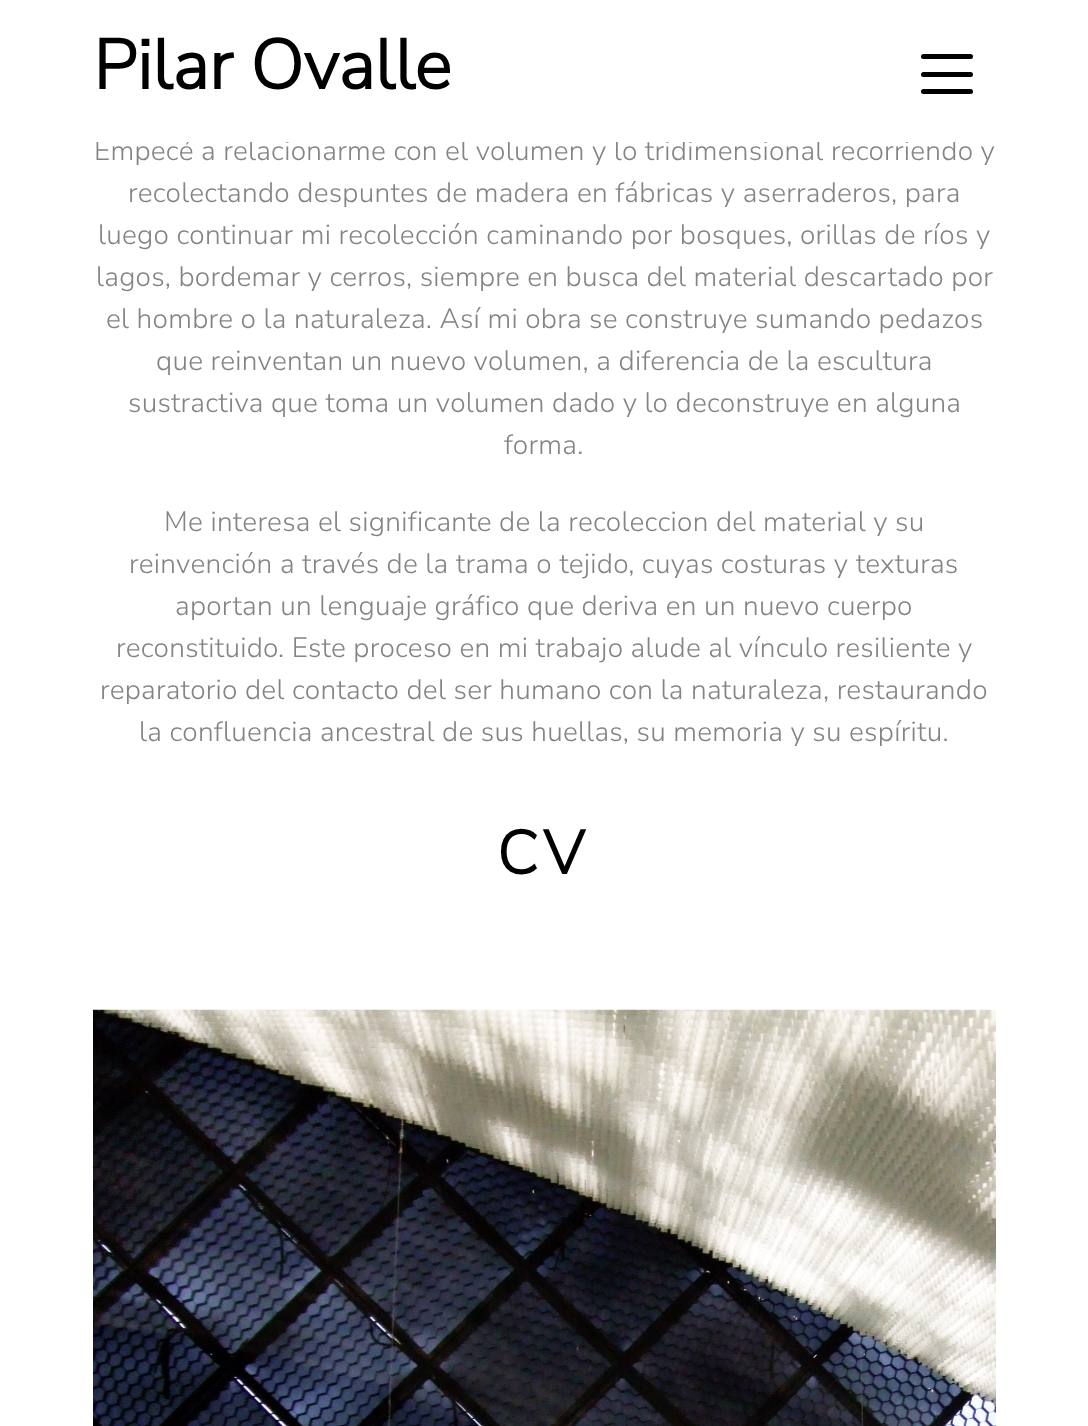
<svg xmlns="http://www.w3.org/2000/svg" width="1088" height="1426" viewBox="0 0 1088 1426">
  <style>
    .t1 { font: 200 28px Nunito Sans; letter-spacing: 0.28px; fill: #858383; }
    .t2 { font: bold 70px Nunito Sans; fill: #000; }
    .t3 { font: bold 61px Nunito Sans; letter-spacing: 6px; fill: #000; }
  </style>
  <rect width="100%" height="100%" fill="#fff"/>
  <text x="94" y="160" class="t1">Empecé a relacionarme con el volumen y lo tridimensional recorriendo y</text>
  <rect x="96" y="139" width="859" height="3" fill="#fff"/>
  <text x="93" y="89" class="t2">Pilar Ovalle</text>
  <rect x="921" y="54" width="52" height="5" rx="2.5" fill="#000"/>
  <rect x="921" y="72" width="52" height="5" rx="2.5" fill="#000"/>
  <rect x="921" y="89" width="52" height="5" rx="2.5" fill="#000"/>
  <text x="128" y="202" class="t1">recolectando despuntes de madera en fábricas y aserraderos, para</text>
  <text x="98" y="244" class="t1">luego continuar mi recolección caminando por bosques, orillas de ríos y</text>
  <text x="96" y="286" class="t1">lagos, bordemar y cerros, siempre en busca del material descartado por</text>
  <text x="106" y="328" class="t1">el hombre o la naturaleza. Así mi obra se construye sumando pedazos</text>
  <text x="156" y="370" class="t1">que reinventan un nuevo volumen, a diferencia de la escultura</text>
  <text x="128" y="412" class="t1">sustractiva que toma un volumen dado y lo deconstruye en alguna</text>
  <text x="504" y="454" class="t1">forma.</text>
  <text x="164" y="531" class="t1">Me interesa el significante de la recoleccion del material y su</text>
  <text x="129" y="573" class="t1">reinvención a través de la trama o tejido, cuyas costuras y texturas</text>
  <text x="175" y="615" class="t1">aportan un lenguaje gráfico que deriva en un nuevo cuerpo</text>
  <text x="116" y="657" class="t1">reconstituido. Este proceso en mi trabajo alude al vínculo resiliente y</text>
  <text x="100" y="699" class="t1">reparatorio del contacto del ser humano con la naturaleza, restaurando</text>
  <text x="139" y="741" class="t1">la confluencia ancestral de sus huellas, su memoria y su espíritu.</text>
  <text x="497" y="874" class="t3">CV</text>
  <image x="93" y="1009" width="903" height="417" href="images/1.png"/>
</svg>
